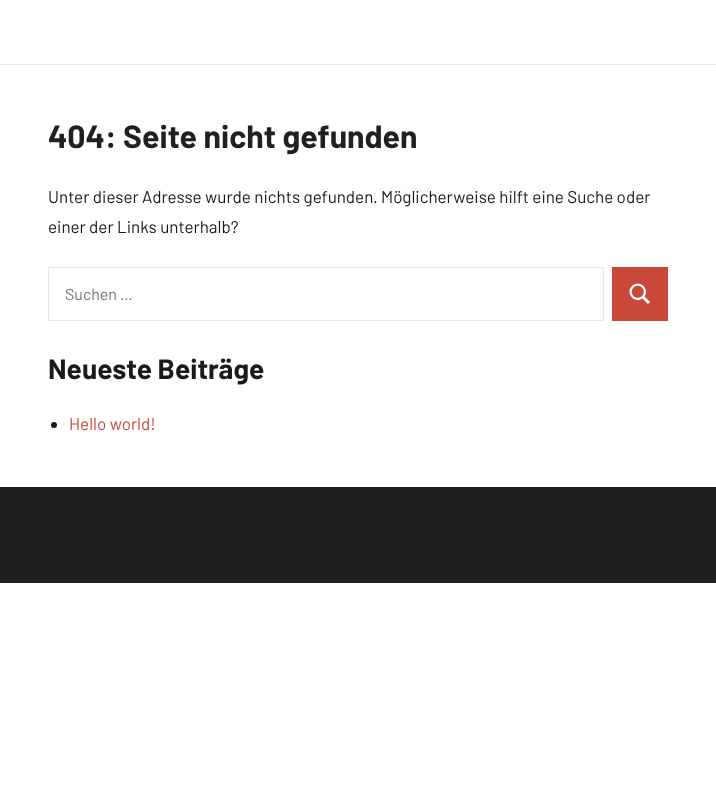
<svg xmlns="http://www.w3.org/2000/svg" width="716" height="809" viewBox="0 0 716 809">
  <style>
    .t1 { font: bold 32px Barlow; fill: #202020; }
    .t2 { font: 17px Barlow; fill: #1a1a1a; }
    .t3 { font: 16px Barlow; fill: #757575; }
    .t4 { font: bold 28px Barlow; fill: #1a1a1a; }
    .t5 { font: 17px Barlow; fill: #c9493b; }
  </style>
  <rect width="100%" height="100%" fill="#fff"/>
  <rect x="0" y="64" width="716" height="1" fill="#e6e6e6"/>
  <text x="48" y="148" class="t1">404: Seite nicht gefunden</text>
  <text x="48" y="203" class="t2">Unter dieser Adresse wurde nichts gefunden. Möglicherweise hilft eine Suche oder</text>
  <text x="48" y="233" class="t2">einer der Links unterhalb?</text>
  <rect x="48.5" y="267.5" width="555" height="53" fill="none" stroke="#e6e6e6"/>
  <text x="65" y="300" class="t3">Suchen …</text>
  <rect x="612" y="267" width="56" height="54" fill="#c9493b"/>
  <image x="629" y="283" width="21" height="21" href="images/1.png"/>
  <text x="48" y="379" class="t4">Neueste Beiträge</text>
  <circle cx="54" cy="425" r="3" fill="#1a1a1a"/>
  <text x="69" y="430" class="t5">Hello world!</text>
  <rect x="0" y="487" width="716" height="96" fill="#202020"/>
</svg>
